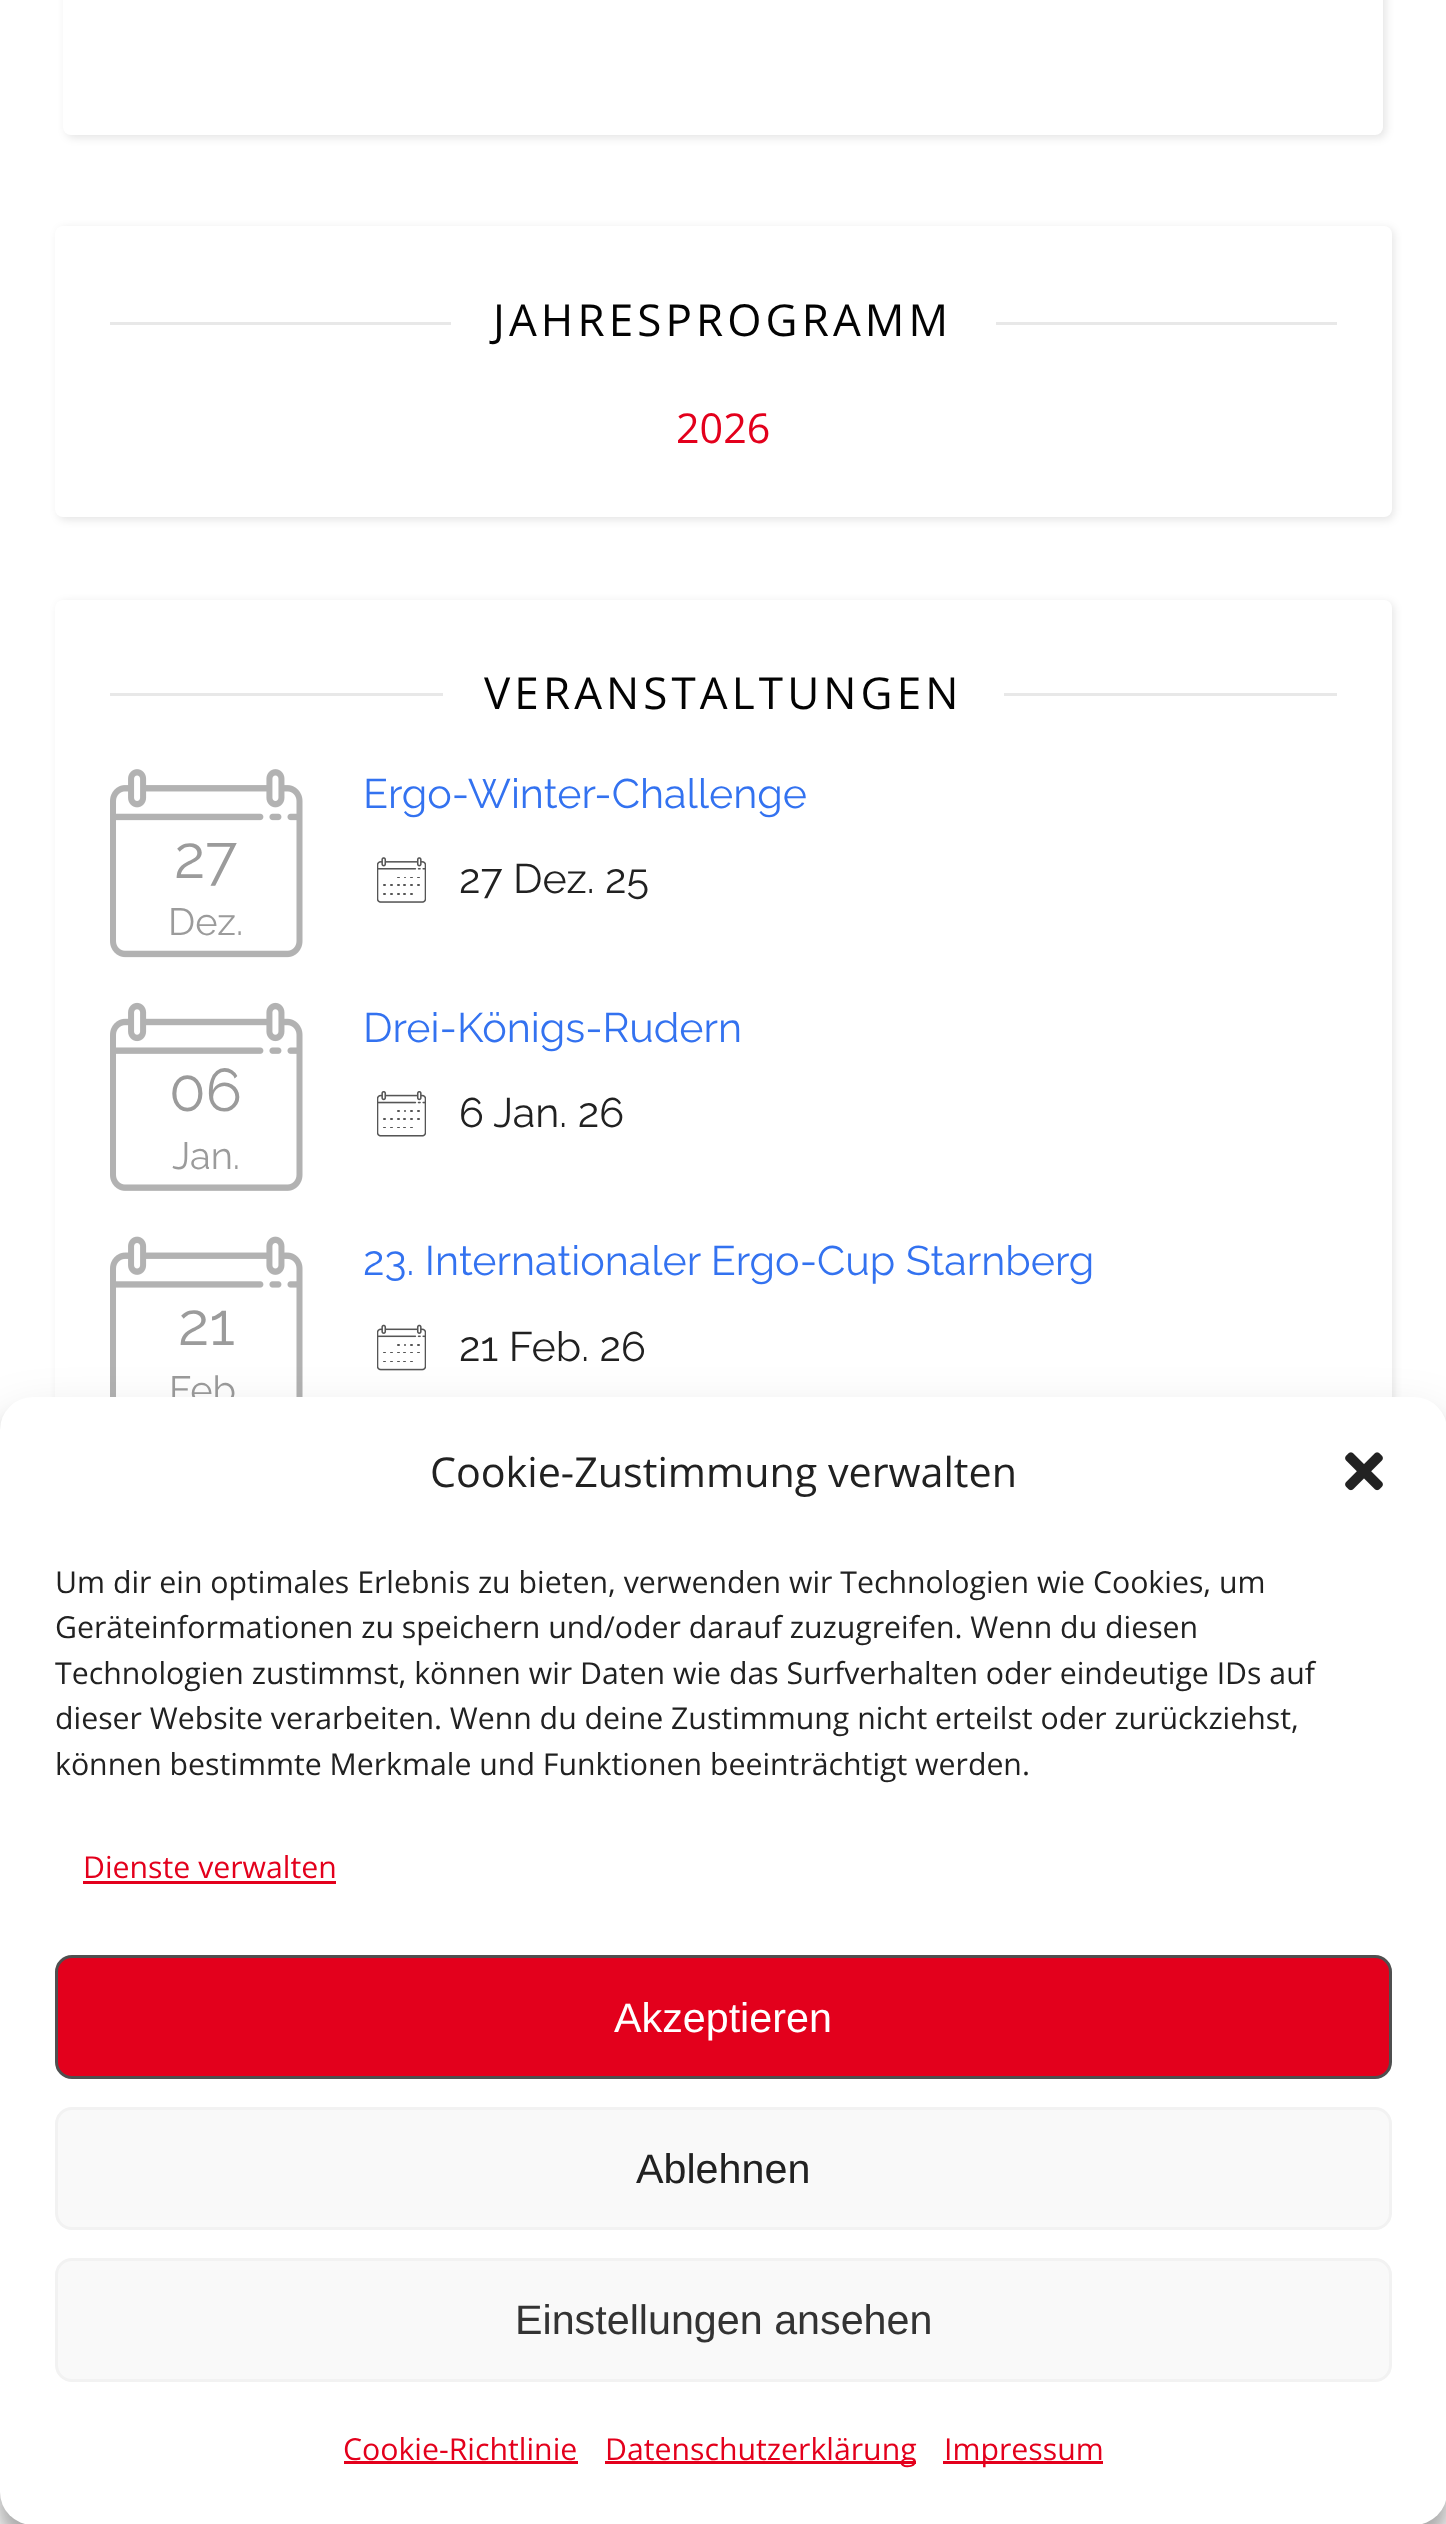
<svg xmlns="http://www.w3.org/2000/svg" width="1446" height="2524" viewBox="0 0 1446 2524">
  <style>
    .t1 { font: 44px Open Sans; letter-spacing: 4.1px; fill: #030303; }
    .t2 { font: 41.25px Open Sans; fill: #e3001c; }
    .t3 { font: 60px Raleway; fill: #9b9b9b; }
    .t4 { font: 38px Raleway; fill: #9b9b9b; }
    .t5 { font: 41.25px Raleway; fill: #3372f0; }
    .t6 { font: 41.25px Raleway; fill: #212121; }
    .t7 { font: 41.25px Open Sans; fill: #212121; }
    .t8 { font: 30.25px Open Sans; fill: #212121; }
    .t9 { font: 30.25px Open Sans; fill: #e3001c; }
    .t10 { font: 41.25px Liberation Sans; fill: #fff; }
    .t11 { font: 41.25px Liberation Sans; fill: #212121; }
    .t12 { font: 41.25px Liberation Sans; fill: #333; }
  </style>
  <rect width="100%" height="100%" fill="#fff"/>
  <rect x="66" y="-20" width="1320" height="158" rx="8" fill="#0000001a" filter="blur(4px)"/>
  <rect x="63" y="-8" width="1320" height="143" rx="8" fill="#fff"/>
  <rect x="58" y="228" width="1336" height="292" rx="8" fill="#0000001a" filter="blur(4px)"/>
  <rect x="55" y="226" width="1337" height="291" rx="8" fill="#fff"/>
  <rect x="110" y="322" width="341" height="3" fill="#e8e8e8"/>
  <text x="493" y="336" class="t1">JAHRESPROGRAMM</text>
  <rect x="996" y="322" width="341" height="3" fill="#e8e8e8"/>
  <text x="676" y="443" class="t2">2026</text>
  <rect x="58" y="602" width="1336" height="883" rx="8" fill="#0000001a" filter="blur(4px)"/>
  <rect x="55" y="600" width="1337" height="882" rx="8" fill="#fff"/>
  <rect x="110" y="693" width="333" height="3" fill="#e8e8e8"/>
  <text x="484" y="709" class="t1">VERANSTALTUNGEN</text>
  <rect x="1004" y="693" width="333" height="3" fill="#e8e8e8"/>
  <image x="110" y="769" width="193" height="189" href="images/1.png"/>
  <text x="174" y="878" class="t3">27</text>
  <text x="168" y="935" class="t4">Dez.</text>
  <text x="363" y="808" class="t5">Ergo-Winter-Challenge</text>
  <image x="377" y="857" width="49" height="46" href="images/2.png"/>
  <text x="459" y="893" class="t6">27 Dez. 25</text>
  <image x="110" y="1002" width="193" height="189" href="images/3.png"/>
  <text x="169" y="1111" class="t3">06</text>
  <text x="172" y="1169" class="t4">Jan.</text>
  <text x="363" y="1042" class="t5">Drei-Königs-Rudern</text>
  <image x="377" y="1091" width="49" height="46" href="images/4.png"/>
  <text x="459" y="1127" class="t6">6 Jan. 26</text>
  <image x="110" y="1236" width="193" height="161" href="images/5.png"/>
  <text x="178" y="1345" class="t3">21</text>
  <text x="169" y="1403" class="t4">Feb</text>
  <text x="363" y="1275" class="t5">23. Internationaler Ergo-Cup Starnberg</text>
  <image x="377" y="1324" width="49" height="47" href="images/6.png"/>
  <text x="459" y="1361" class="t6">21 Feb. 26</text>
  <rect x="0" y="1414" width="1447" height="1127" rx="33" fill="#0000003b" filter="blur(8px)"/>
  <rect x="0" y="1425" width="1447" height="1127" rx="33" fill="#00000030" filter="blur(27.5px)"/>
  <rect x="0" y="1397" width="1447" height="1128" rx="33" fill="#fff"/>
  <text x="430" y="1487" class="t7">Cookie-Zustimmung verwalten</text>
  <image x="1345" y="1452" width="38" height="39" href="images/7.png"/>
  <text x="55" y="1593" class="t8">Um dir ein optimales Erlebnis zu bieten, verwenden wir Technologien wie Cookies, um</text>
  <text x="55" y="1638" class="t8">Geräteinformationen zu speichern und/oder darauf zuzugreifen. Wenn du diesen</text>
  <text x="55" y="1684" class="t8">Technologien zustimmst, können wir Daten wie das Surfverhalten oder eindeutige IDs auf</text>
  <text x="55" y="1729" class="t8">dieser Website verarbeiten. Wenn du deine Zustimmung nicht erteilst oder zurückziehst,</text>
  <text x="55" y="1775" class="t8">können bestimmte Merkmale und Funktionen beeinträchtigt werden.</text>
  <text x="83" y="1878" class="t9">Dienste verwalten</text>
  <rect x="83" y="1881" width="253" height="3" fill="#e3001c"/>
  <rect x="56.5" y="1956.5" width="1334" height="121" rx="15.5" fill="#e3001c" stroke="#4f4f4f" stroke-width="3"/>
  <text x="614" y="2032" class="t10">Akzeptieren</text>
  <rect x="56.5" y="2108.5" width="1334" height="120" rx="15.5" fill="#f9f9f9" stroke="#f2f2f2" stroke-width="3"/>
  <text x="636" y="2183" class="t11">Ablehnen</text>
  <rect x="56.5" y="2259.5" width="1334" height="121" rx="15.5" fill="#f9f9f9" stroke="#f2f2f2" stroke-width="3"/>
  <text x="515" y="2334" class="t12">Einstellungen ansehen</text>
  <text x="343" y="2460" class="t9">Cookie-Richtlinie</text>
  <rect x="344" y="2461" width="234" height="3" fill="#e3001c"/>
  <rect x="605" y="2461" width="311" height="3" fill="#e3001c"/>
  <text x="605" y="2460" class="t9">Datenschutzerklärung</text>
  <rect x="943" y="2461" width="160" height="3" fill="#e3001c"/>
  <text x="944" y="2460" class="t9">Impressum</text>
</svg>
